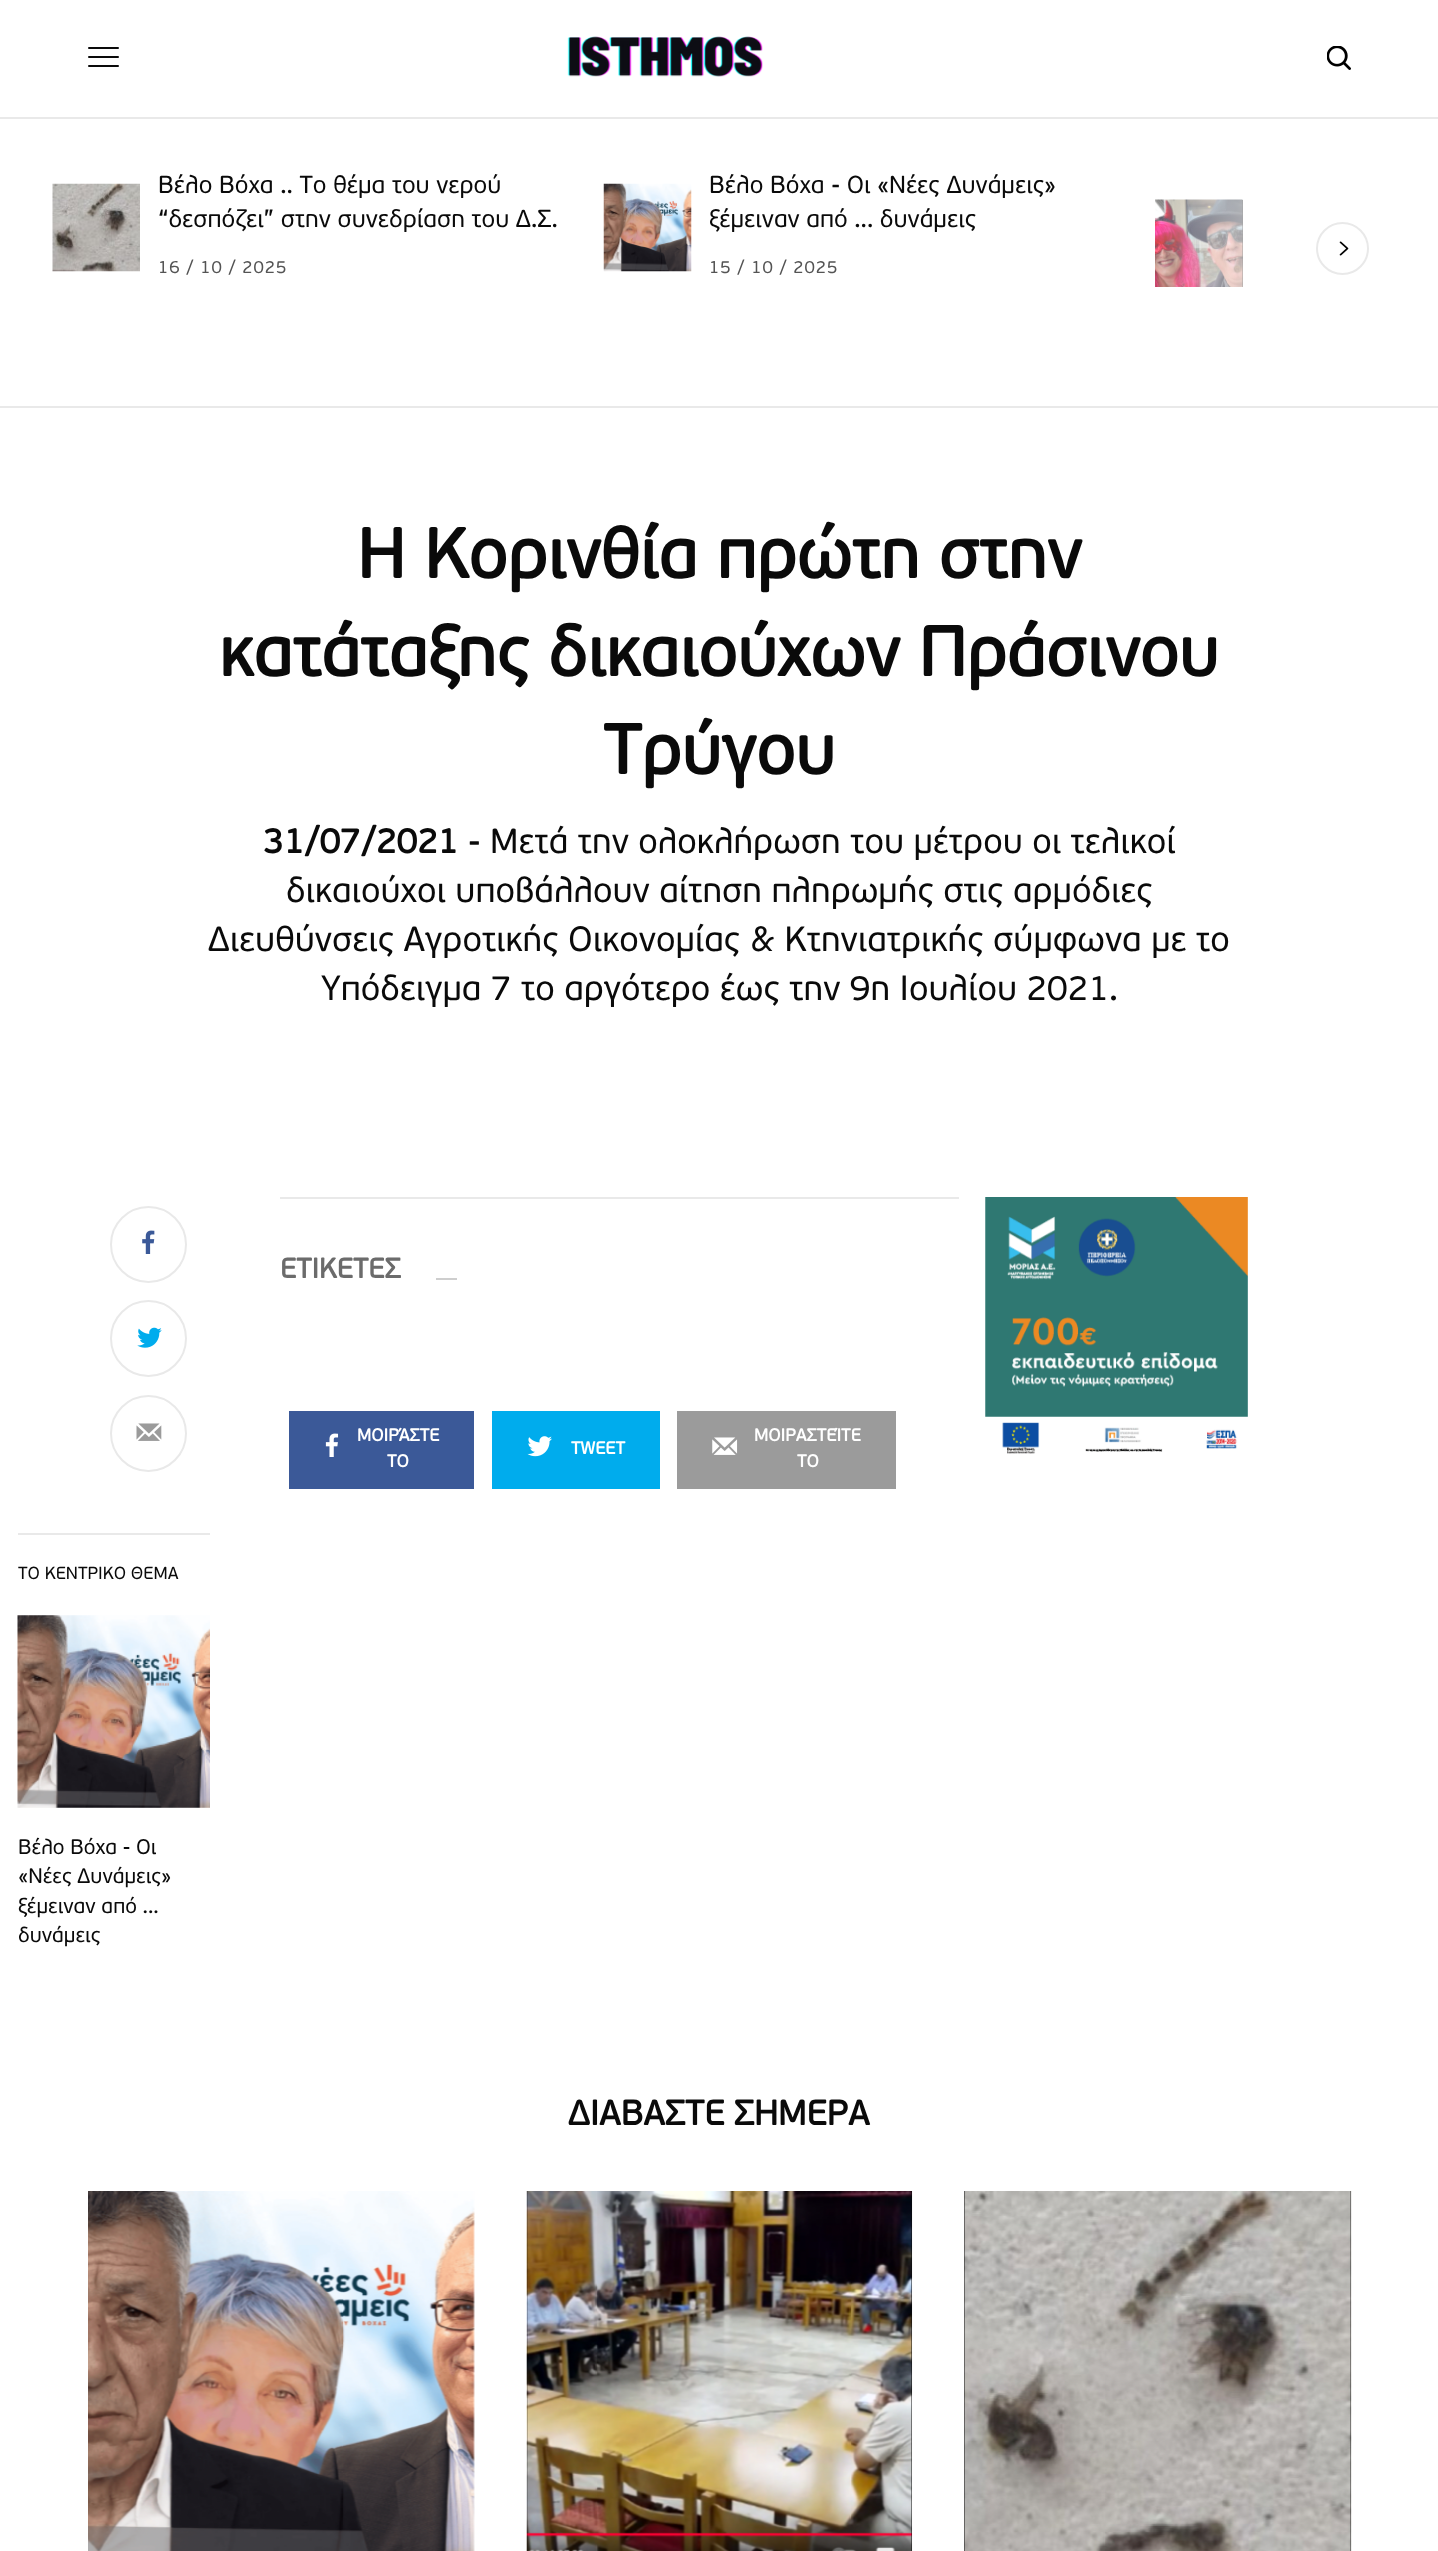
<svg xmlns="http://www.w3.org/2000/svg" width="1438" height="2551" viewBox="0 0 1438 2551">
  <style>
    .t1 { font: 24.5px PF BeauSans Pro; fill: #0a0a0a; }
    .t2 { font: 17.5px PF BeauSans Pro; letter-spacing: 0.9px; fill: #545454; }
    .t3 { font: bold 70px PF BeauSans Pro; fill: #0a0a0a; }
    .t4 { font: bold 35px PF BeauSans Pro; fill: #0a0a0a; }
    .t5 { font: 35px PF BeauSans Pro; fill: #0a0a0a; }
    .t6 { font: bold 28px PF BeauSans Pro; fill: #6b6b6b; }
    .t7 { font: bold 17.5px PF BeauSans Pro; fill: #fff; }
    .t8 { font: 17.5px PF BeauSans Pro; fill: #0a0a0a; }
    .t9 { font: 21px PF BeauSans Pro; fill: #0a0a0a; }
  </style>
  <defs>
    <linearGradient id="g1" gradientUnits="userSpaceOnUse" x1="1089" y1="261" x2="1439" y2="261"><stop offset="0" stop-color="#fff" stop-opacity="0"/><stop offset="0.7" stop-color="#fff"/></linearGradient>
  </defs>
  <rect width="100%" height="100%" fill="#fff"/>
  <rect x="88" y="47" width="31" height="2" rx="1" fill="#0a0a0a"/>
  <rect x="88" y="56" width="31" height="2" rx="1" fill="#0a0a0a"/>
  <rect x="88" y="65" width="31" height="2" rx="1" fill="#0a0a0a"/>
  <image x="567" y="36" width="196" height="41" href="images/1.png"/>
  <image x="1327" y="46" width="24" height="24" href="images/2.png"/>
  <rect x="0" y="117" width="1438" height="2" fill="#e9e9e9"/>
  <image x="52" y="183" width="88" height="89" href="images/3.png"/>
  <text x="158" y="193" class="t1">Βέλο Βόχα .. Το θέμα του νερού</text>
  <text x="158" y="227" class="t1">“δεσπόζει” στην συνεδρίαση του Δ.Σ.</text>
  <text x="158" y="273" class="t2">16 / 10 / 2025</text>
  <image x="603" y="183" width="89" height="89" href="images/4.png"/>
  <text x="709" y="193" class="t1">Βέλο Βόχα - Οι «Νέες Δυνάμεις»</text>
  <text x="709" y="227" class="t1">ξέμειναν από ... δυνάμεις</text>
  <text x="709" y="273" class="t2">15 / 10 / 2025</text>
  <rect x="1242" y="200" width="1" height="87" fill="#0a0a0a"/>
  <image x="1155" y="199" width="88" height="88" href="images/5.png"/>
  <rect x="1155" y="199" width="88" height="88" fill="url(#g1)"/>
  <circle cx="1342.5" cy="248.5" r="25.5" fill="none" stroke="#e9e9e9" stroke-width="2"/>
  <image x="1339" y="241" width="10" height="15" href="images/6.png"/>
  <rect x="0" y="406" width="1438" height="2" fill="#e9e9e9"/>
  <text x="357" y="578" class="t3">Η Κορινθία πρώτη στην</text>
  <text x="219" y="676" class="t3">κατάταξης δικαιούχων Πράσινου</text>
  <text x="603" y="774" class="t3">Τρύγου</text>
  <text x="263" y="853" class="t4">31/07/2021</text>
  <text x="468" y="853" class="t5">- Μετά την ολοκλήρωση του µέτρου οι τελικοί</text>
  <text x="286" y="902" class="t5">δικαιούχοι υποβάλλουν αίτηση πληρωµής στις αρµόδιες</text>
  <text x="208" y="951" class="t5">Διευθύνσεις Αγροτικής Οικονοµίας &amp; Κτηνιατρικής σύµφωνα µε το</text>
  <text x="321" y="1000" class="t5">Υπόδειγµα 7 το αργότερο έως την 9η Ιουλίου 2021.</text>
  <rect x="280" y="1197" width="679" height="2" fill="#e9e9e9"/>
  <text x="280" y="1278" class="t6">ETIΚΕΤΕΣ</text>
  <rect x="436" y="1278" width="21" height="2" fill="#cecece"/>
  <rect x="289" y="1411" width="185" height="78" fill="#3b5998"/>
  <image x="325" y="1433" width="14" height="24" href="images/7.png"/>
  <text x="357" y="1441" class="t7">ΜΟΙΡΆΣΤΕ</text>
  <text x="387" y="1467" class="t7">ΤΟ</text>
  <rect x="492" y="1411" width="168" height="78" fill="#00aced"/>
  <image x="527" y="1436" width="25" height="21" href="images/8.png"/>
  <text x="571" y="1454" class="t7">TWEET</text>
  <rect x="677" y="1411" width="219" height="78" fill="#9b9b9b"/>
  <image x="712" y="1437" width="26" height="18" href="images/9.png"/>
  <text x="754" y="1441" class="t7">ΜΟΙΡΑΣΤΕΊΤΕ</text>
  <text x="797" y="1467" class="t7">ΤΟ</text>
  <circle cx="148.5" cy="1244.5" r="37.5" fill="none" stroke="#e9e9e9" stroke-width="2"/>
  <image x="142" y="1230" width="13" height="24" href="images/10.png"/>
  <circle cx="148.5" cy="1338.5" r="37.5" fill="none" stroke="#e9e9e9" stroke-width="2"/>
  <image x="137" y="1327" width="25" height="21" href="images/11.png"/>
  <circle cx="148.5" cy="1433.5" r="37.5" fill="none" stroke="#e9e9e9" stroke-width="2"/>
  <image x="136" y="1423" width="26" height="18" href="images/12.png"/>
  <rect x="18" y="1533" width="192" height="2" fill="#e9e9e9"/>
  <text x="18" y="1579" class="t8">ΤΟ ΚΕΝΤΡΙΚΟ ΘΕΜΑ</text>
  <image x="17" y="1615" width="193" height="193" href="images/13.png"/>
  <text x="18" y="1854" class="t9">Βέλο Βόχα - Οι</text>
  <text x="18" y="1883" class="t9">«Νέες Δυνάμεις»</text>
  <text x="18" y="1913" class="t9">ξέμειναν από ...</text>
  <text x="18" y="1942" class="t9">δυνάμεις</text>
  <image x="985" y="1197" width="263" height="257" href="images/14.png"/>
  <text x="568" y="2125" class="t4">ΔΙΑΒΑΣΤΕ ΣΗΜΕΡΑ</text>
  <image x="88" y="2191" width="387" height="360" href="images/15.png"/>
  <rect x="527" y="2191" width="385" height="360" fill="#0a0a0a"/>
  <image x="526" y="2191" width="387" height="360" href="images/16.png"/>
  <rect x="964" y="2191" width="387" height="360" fill="#0a0a0a"/>
  <image x="964" y="2191" width="388" height="360" href="images/17.png"/>
</svg>
